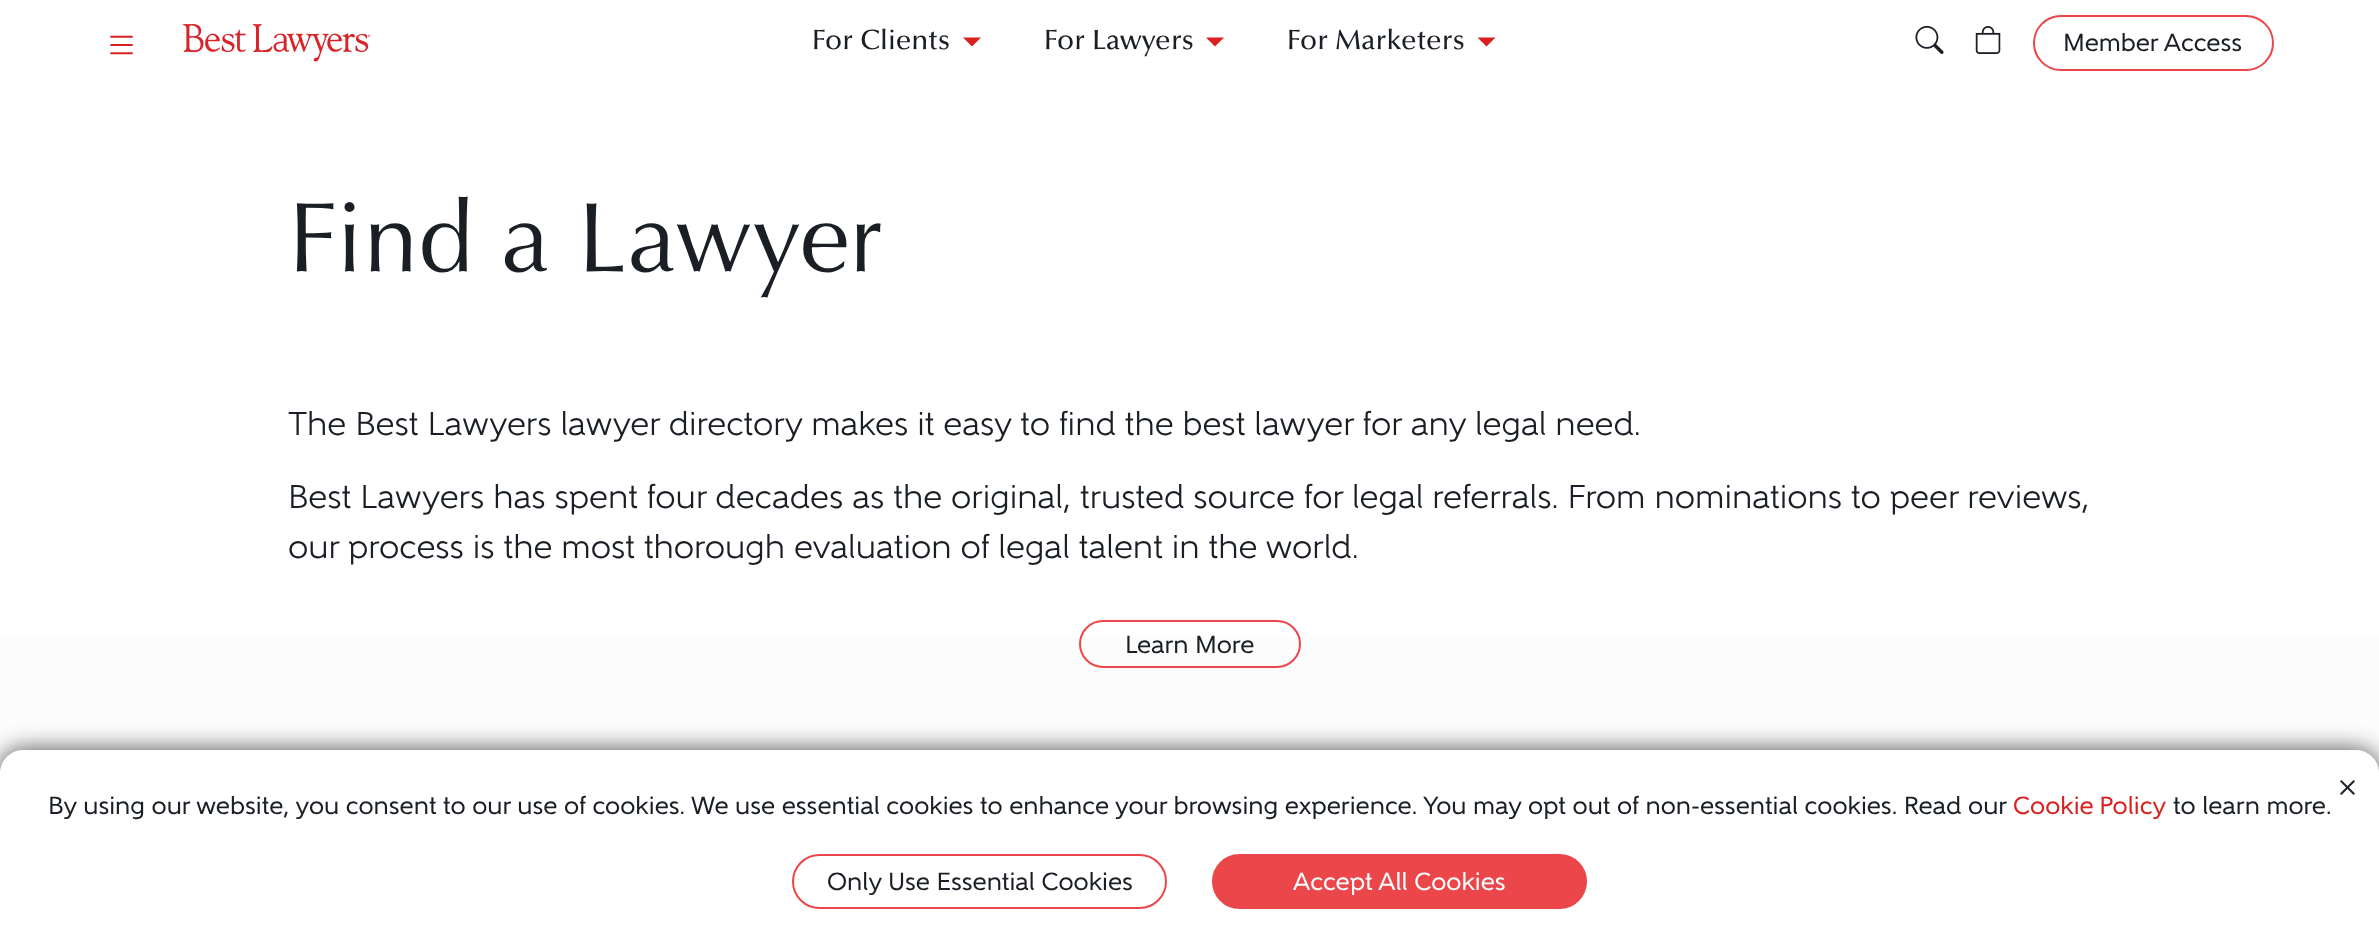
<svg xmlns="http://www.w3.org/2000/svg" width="2379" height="939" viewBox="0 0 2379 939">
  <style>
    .t1 { font: 500 28px Optima; fill: #1a1f25; }
    .t2 { font: 24.75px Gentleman; fill: #1a1f25; }
    .t3 { font: 99px Optima; fill: #1a1f25; }
    .t4 { font: 500 33px Gentleman; fill: #1a1f25; }
    .t5 { font: 24.75px Gentleman; fill: #da1f1f; }
    .t6 { font: 24.75px Gentleman; fill: #fff; }
  </style>
  <defs>
    <linearGradient id="g1" gradientUnits="userSpaceOnUse" x1="1189" y1="85" x2="1190" y2="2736"><stop offset="0" stop-color="#fff"/><stop offset="1" stop-color="#f3f3f3"/></linearGradient>
  </defs>
  <rect width="100%" height="100%" fill="#fff"/>
  <image x="110" y="35" width="23" height="20" href="images/1.png"/>
  <image x="183" y="24" width="188" height="38" href="images/2.png"/>
  <text x="812" y="49" class="t1">For Clients</text>
  <path d="M963 37.5H981L972 46.5Z" fill="#da1f1f"/>
  <text x="1044" y="49" class="t1">For Lawyers</text>
  <path d="M1206 37.5H1224L1215 46.5Z" fill="#da1f1f"/>
  <text x="1287" y="49" class="t1">For Marketers</text>
  <path d="M1477.5 37.5H1495.5L1486.5 46.5Z" fill="#da1f1f"/>
  <image x="1915" y="25" width="29" height="29" href="images/3.png"/>
  <image x="1975" y="26" width="26" height="28" href="images/4.png"/>
  <rect x="2034" y="16" width="239" height="54" rx="27" fill="none" stroke="#eb4649" stroke-width="2"/>
  <text x="2063" y="51" class="t2">Member Access</text>
  <rect x="0" y="637" width="2379" height="136" fill="url(#g1)"/>
  <text x="288" y="271" class="t3">Find a Lawyer</text>
  <text x="288" y="435" class="t4">The Best Lawyers lawyer directory makes it easy to find the best lawyer for any legal need.</text>
  <text x="288" y="508" class="t4">Best Lawyers has spent four decades as the original, trusted source for legal referrals. From nominations to peer reviews,</text>
  <text x="288" y="558" class="t4">our process is the most thorough evaluation of legal talent in the world.</text>
  <rect x="1080" y="621" width="220" height="46" rx="23" fill="none" stroke="#eb4649" stroke-width="2"/>
  <text x="1125" y="653" class="t2">Learn More</text>
  <rect x="0" y="750" width="2379" height="189" rx="23" fill="#000000b3" filter="blur(12px)"/>
  <path d="M23 750H2356C2368.5 750 2379 760.5 2379 773V939H0V773C0 760.5 10.5 750 23 750Z" fill="#fff"/>
  <image x="2340" y="780" width="15" height="15" href="images/5.png"/>
  <text x="48" y="814" class="t2">By using our website, you consent to our use of cookies. We use essential cookies to enhance your browsing experience. You may opt out of non-essential cookies. Read our</text>
  <text x="2013" y="814" word-spacing="-1" class="t5">Cookie Policy</text>
  <text x="2173" y="814" class="t2">to learn more.</text>
  <rect x="793" y="855" width="373" height="53" rx="26.5" fill="none" stroke="#eb4649" stroke-width="2"/>
  <text x="827" y="890" class="t2">Only Use Essential Cookies</text>
  <rect x="1213" y="855" width="373" height="53" rx="26.5" fill="#eb4649" stroke="#eb4649" stroke-width="2"/>
  <text x="1293" y="890" class="t6">Accept All Cookies</text>
</svg>
